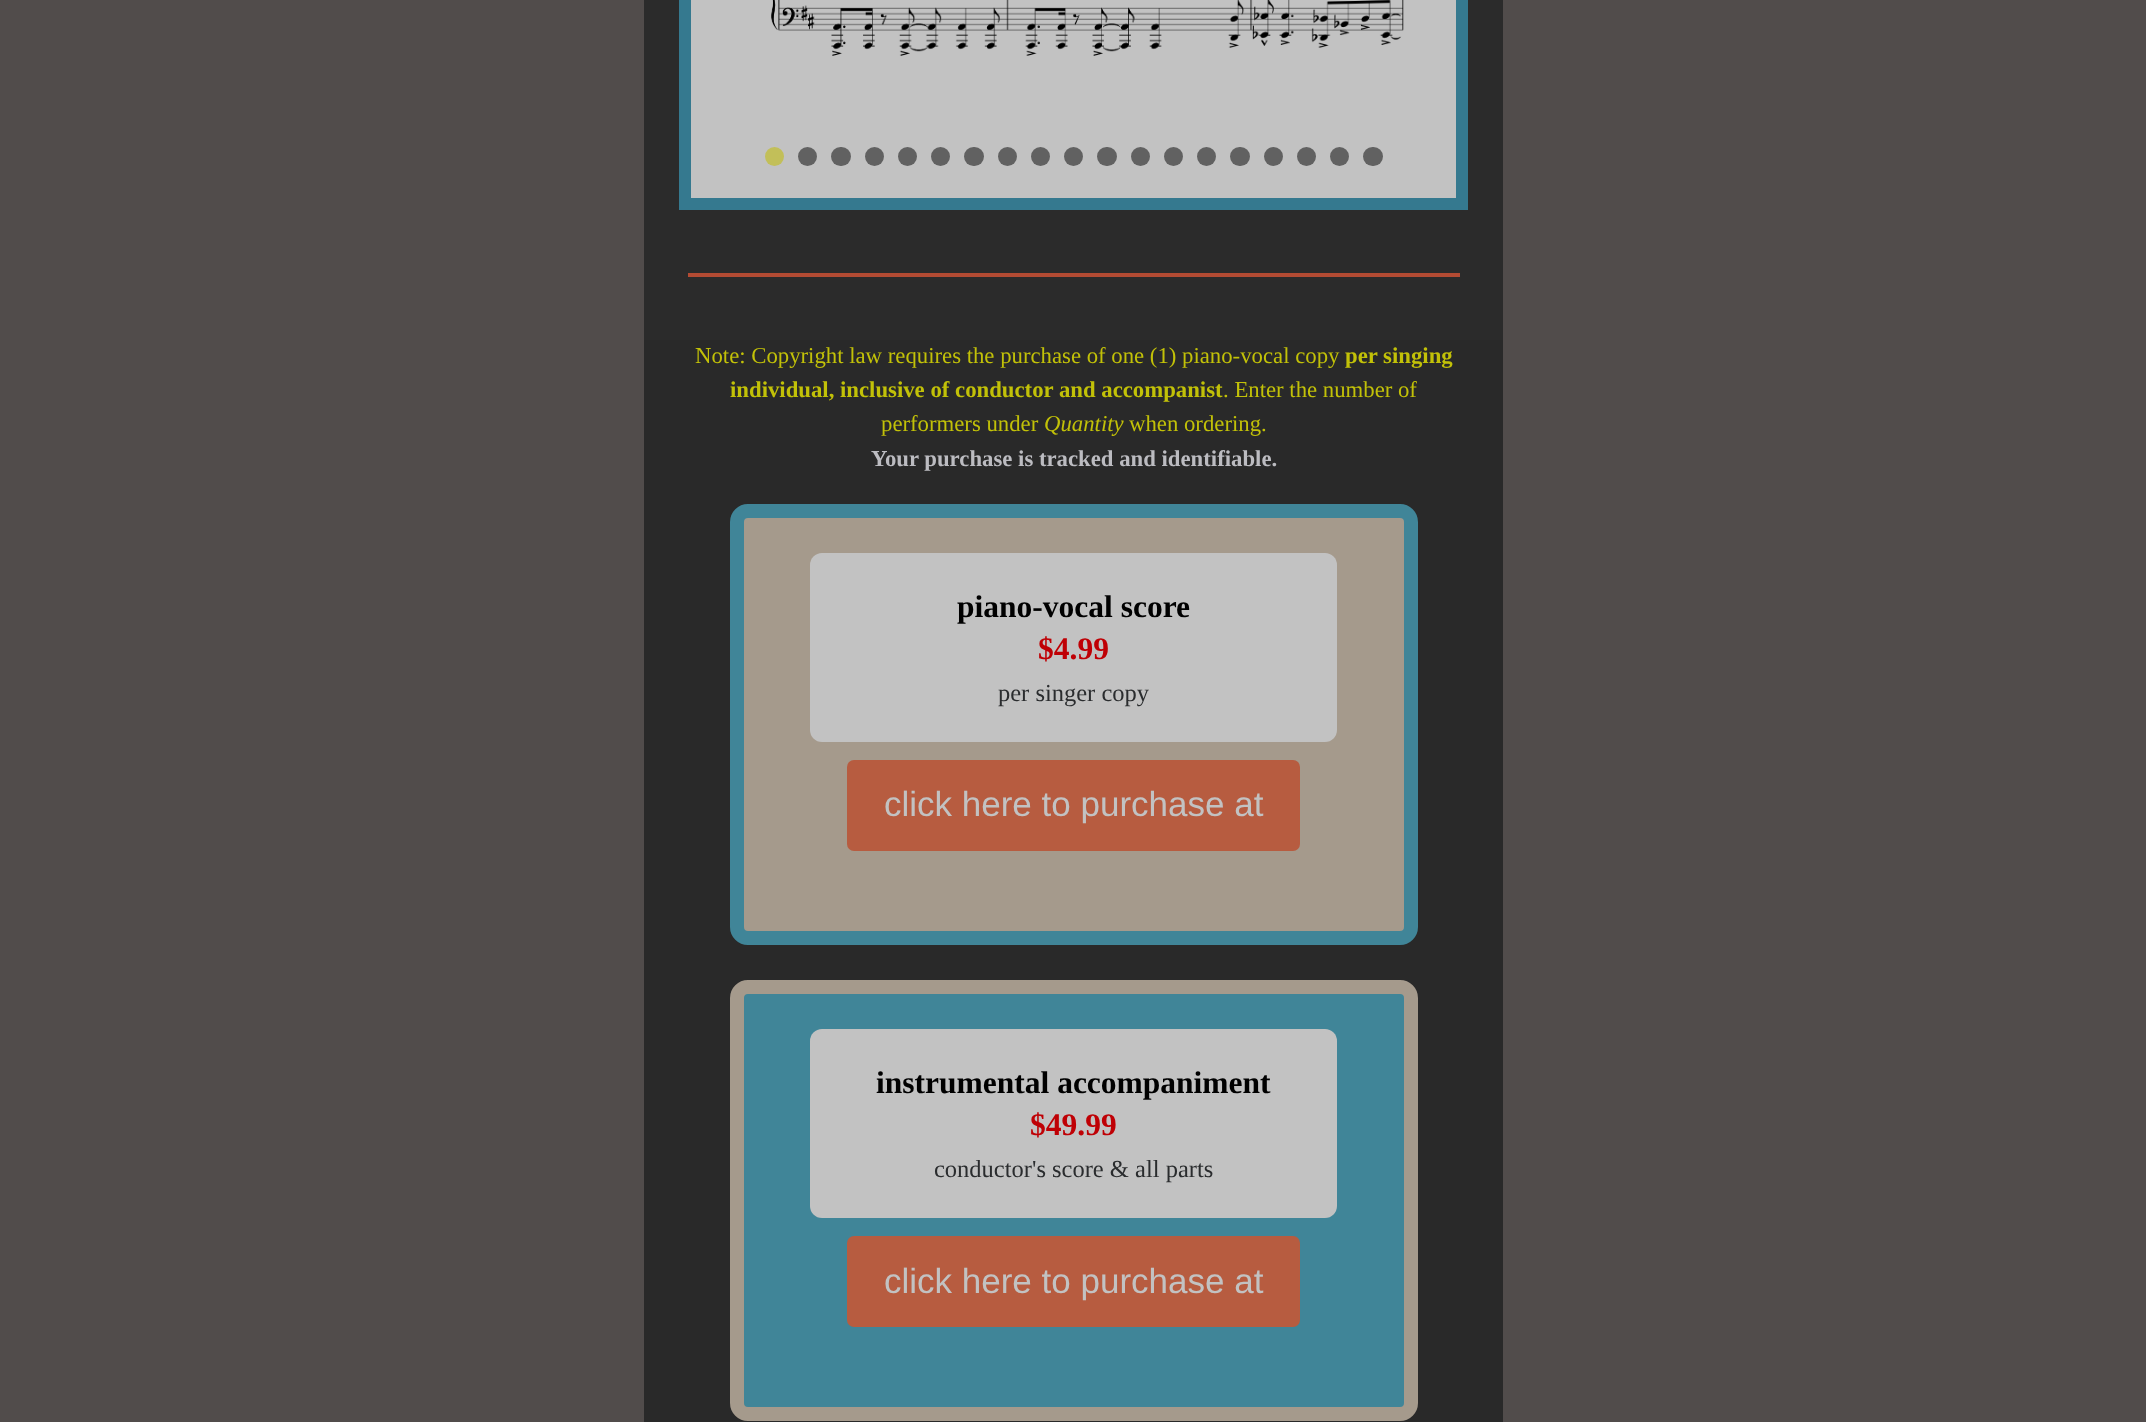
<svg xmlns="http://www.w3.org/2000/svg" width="2146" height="1422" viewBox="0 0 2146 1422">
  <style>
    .t1 { font: 22.75px Liberation Serif; fill: #c2c108; }
    .t2 { font: bold 22.75px Liberation Serif; fill: #c2c108; }
    .t3 { font: italic 22.75px Liberation Serif; fill: #c2c108; }
    .t4 { font: bold 22.75px Liberation Serif; fill: #bcbcc1; }
    .t5 { font: bold 31.5px Liberation Serif; fill: #000; }
    .t6 { font: bold 31.5px Liberation Serif; fill: #bf0005; }
    .t7 { font: 24.5px Liberation Serif; fill: #2a2c2e; }
    .t8 { font: 35px Liberation Sans; fill: #c2c2c2; }
  </style>
  <rect width="100%" height="100%" fill="#514c4b"/>
  <rect x="644" y="0" width="859" height="340" fill="#2b2b2b"/>
  <rect x="685" y="-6" width="777" height="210" fill="#c2c2c2" stroke="#35798f" stroke-width="12"/>
  <image x="771" y="0" width="633" height="56" href="images/1.png"/>
  <circle cx="774.5" cy="156.5" r="9.5" fill="#c2bf59"/>
  <circle cx="807.5" cy="156.5" r="9.5" fill="#616161"/>
  <rect x="831" y="147" width="20" height="19" rx="9.5" fill="#616161"/>
  <circle cx="874.5" cy="156.5" r="9.5" fill="#616161"/>
  <circle cx="907.5" cy="156.5" r="9.5" fill="#616161"/>
  <circle cx="940.5" cy="156.5" r="9.5" fill="#616161"/>
  <rect x="964" y="147" width="20" height="19" rx="9.5" fill="#616161"/>
  <circle cx="1007.5" cy="156.5" r="9.5" fill="#616161"/>
  <circle cx="1040.5" cy="156.5" r="9.5" fill="#616161"/>
  <circle cx="1073.5" cy="156.5" r="9.5" fill="#616161"/>
  <rect x="1097" y="147" width="20" height="19" rx="9.5" fill="#616161"/>
  <circle cx="1140.5" cy="156.5" r="9.5" fill="#616161"/>
  <circle cx="1173.5" cy="156.5" r="9.5" fill="#616161"/>
  <circle cx="1206.5" cy="156.5" r="9.5" fill="#616161"/>
  <rect x="1230" y="147" width="20" height="19" rx="9.5" fill="#616161"/>
  <circle cx="1273.5" cy="156.5" r="9.5" fill="#616161"/>
  <circle cx="1306.5" cy="156.5" r="9.5" fill="#616161"/>
  <circle cx="1339.5" cy="156.5" r="9.5" fill="#616161"/>
  <rect x="1363" y="147" width="20" height="19" rx="9.5" fill="#616161"/>
  <rect x="688" y="273" width="772" height="4" fill="#b34b33"/>
  <rect x="644" y="340" width="859" height="1082" fill="#292929"/>
  <text x="695" y="363" class="t1">Note: Copyright law requires the purchase of one (1) piano-vocal copy</text>
  <text x="1345" y="363" class="t2">per singing</text>
  <text x="730" y="397" class="t2">individual, inclusive of conductor and accompanist</text>
  <text x="1223" y="397" class="t1">. Enter the number of</text>
  <text x="881" y="431" class="t1">performers under</text>
  <text x="1044" y="431" class="t3">Quantity</text>
  <text x="1129" y="431" class="t1">when ordering.</text>
  <text x="871" y="466" class="t4">Your purchase is tracked and identifiable.</text>
  <rect x="737" y="511" width="674" height="427" rx="11" fill="#a59a8c" stroke="#408598" stroke-width="14"/>
  <rect x="810" y="553" width="527" height="189" rx="12" fill="#c2c2c2"/>
  <text x="957" y="617" class="t5">piano-vocal score</text>
  <text x="1038" y="659" class="t6">$4.99</text>
  <text x="998" y="701" class="t7">per singer copy</text>
  <rect x="847" y="760" width="453" height="91" rx="7" fill="#b75c40"/>
  <text x="884" y="816" class="t8">click here to purchase at</text>
  <rect x="737" y="987" width="674" height="427" rx="11" fill="#408598" stroke="#a59a8c" stroke-width="14"/>
  <rect x="810" y="1029" width="527" height="189" rx="12" fill="#c2c2c2"/>
  <text x="876" y="1093" class="t5">instrumental accompaniment</text>
  <text x="1030" y="1135" class="t6">$49.99</text>
  <text x="934" y="1177" class="t7">conductor's score &amp; all parts</text>
  <rect x="847" y="1236" width="453" height="91" rx="7" fill="#b75c40"/>
  <text x="884" y="1293" class="t8">click here to purchase at</text>
</svg>
